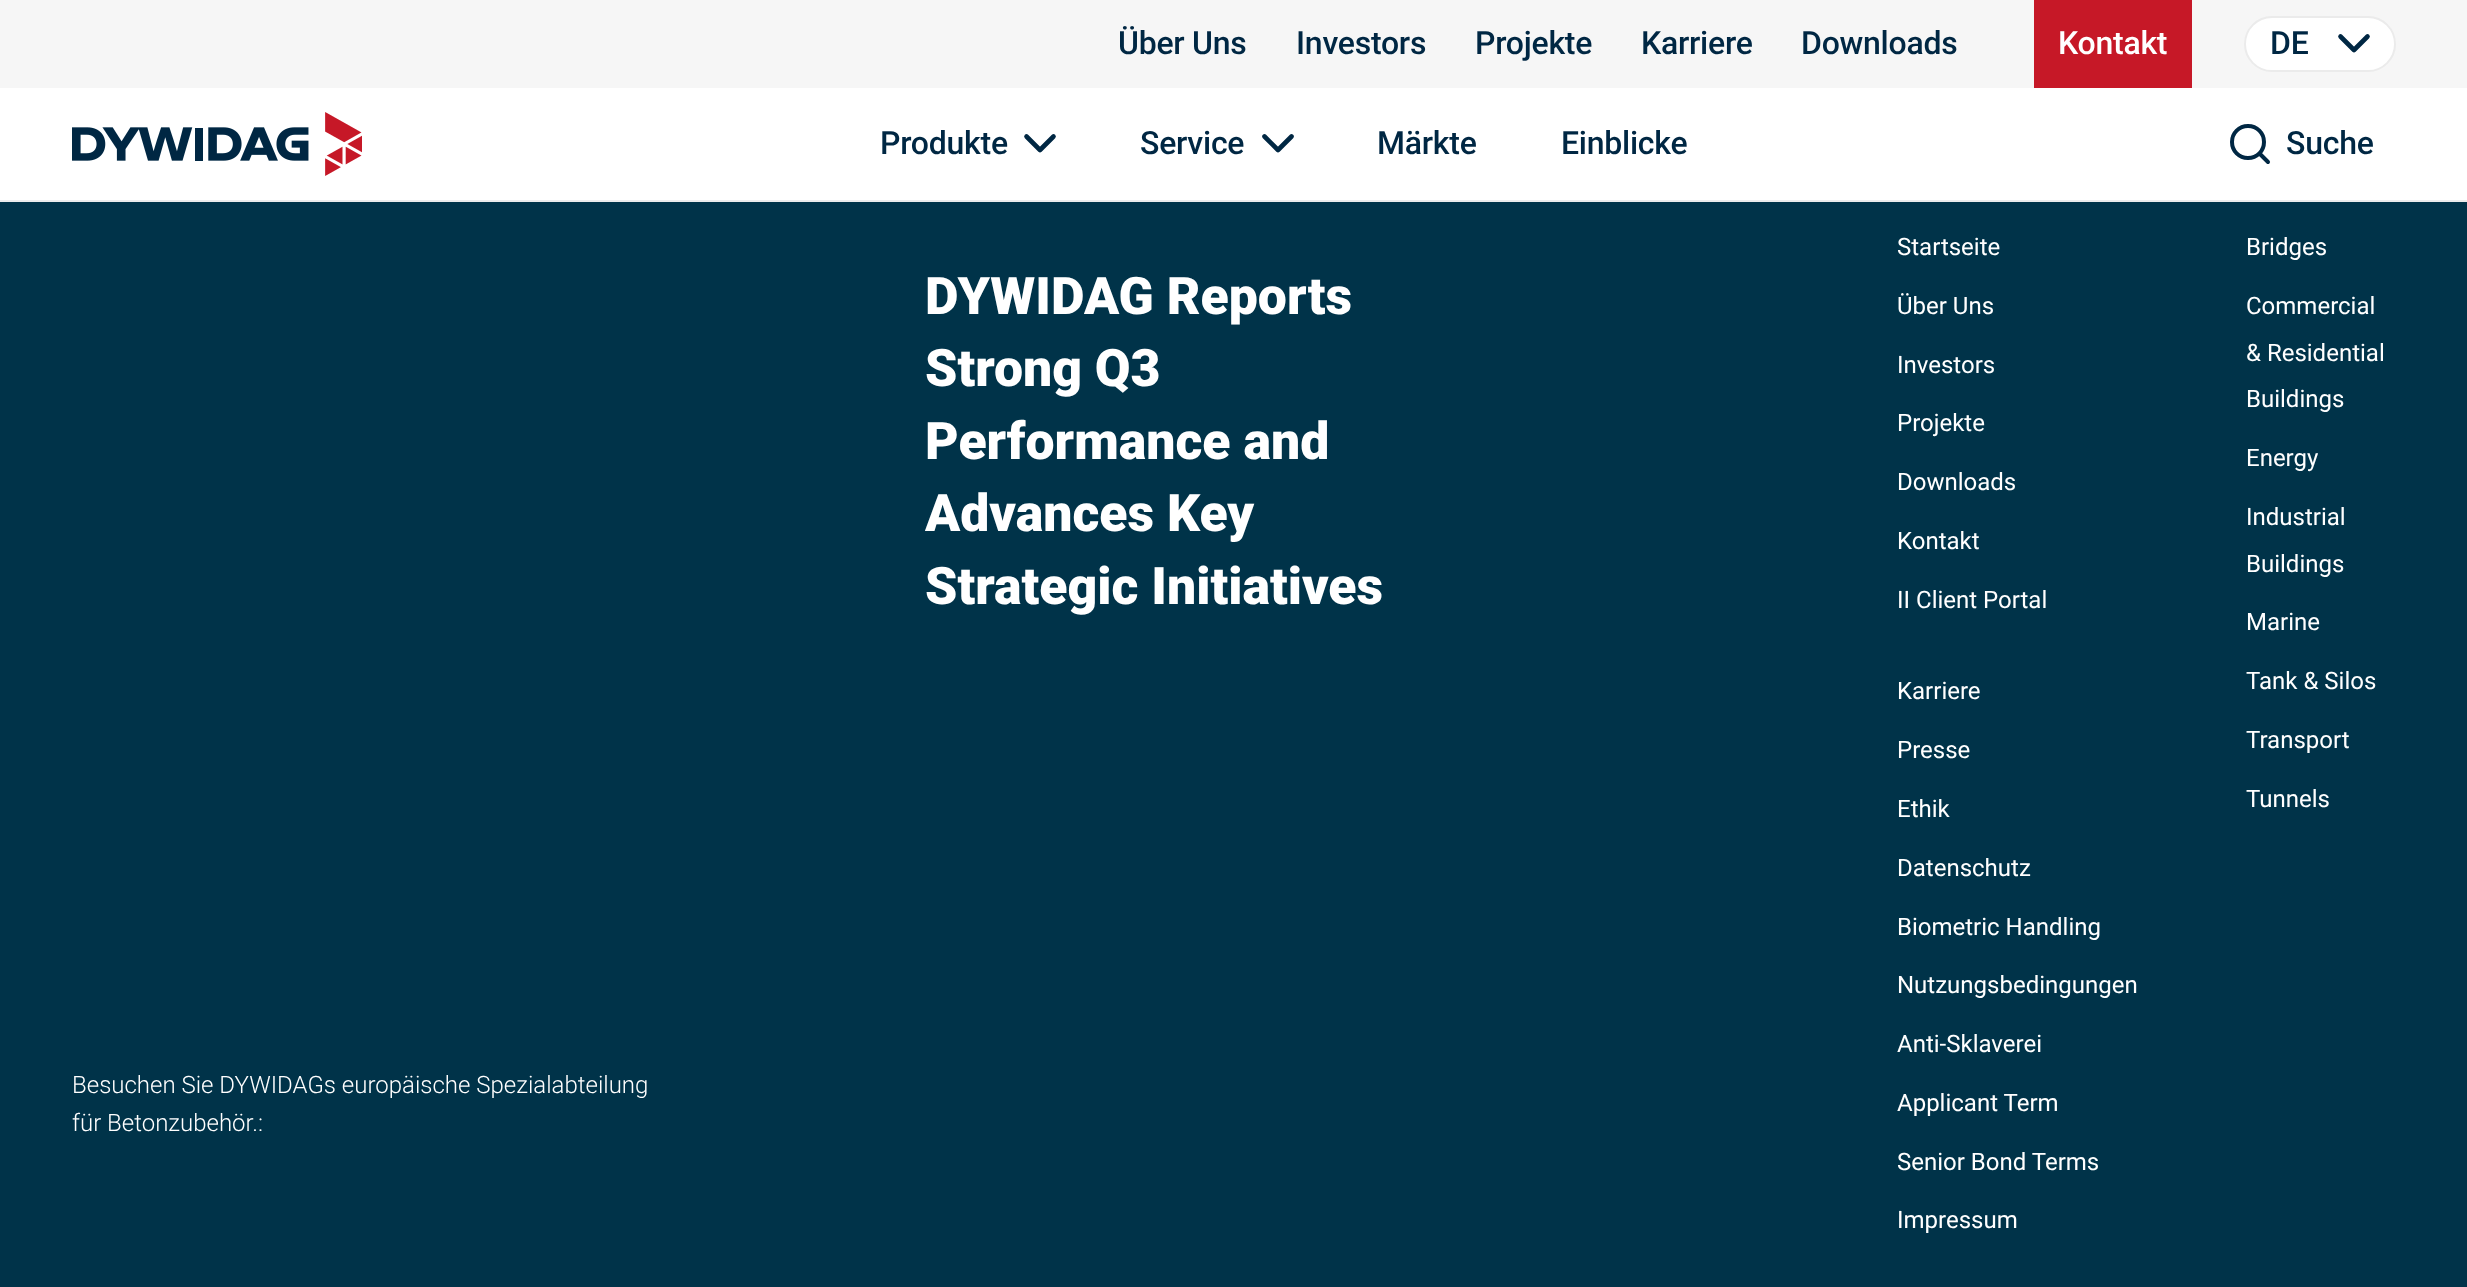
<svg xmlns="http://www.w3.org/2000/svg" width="2467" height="1287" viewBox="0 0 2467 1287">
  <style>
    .t1 { font: 500 32px Roboto; letter-spacing: -0.25px; fill: #002743; }
    .t2 { font: 500 32px Roboto; letter-spacing: -0.25px; fill: #fff; }
    .t3 { font: 900 51.75px Roboto; fill: #fff; }
    .t4 { font: 24px Roboto; fill: #fff; }
    .t5 { font: 300 24px Roboto; fill: #fff; }
  </style>
  <rect width="100%" height="100%" fill="#003349"/>
  <rect x="0" y="88" width="2467" height="112" fill="#fff"/>
  <rect x="0" y="0" width="2467" height="88" fill="#f6f6f6"/>
  <text x="1118" y="54" class="t1">Über Uns</text>
  <text x="1296" y="54" class="t1">Investors</text>
  <text x="1475" y="54" class="t1">Projekte</text>
  <text x="1641" y="54" class="t1">Karriere</text>
  <text x="1801" y="54" class="t1">Downloads</text>
  <rect x="2034" y="0" width="158" height="88" fill="#c61827"/>
  <text x="2058" y="54" class="t2">Kontakt</text>
  <rect x="2245" y="17" width="150" height="54" rx="27" fill="#fff" stroke="#ebebeb" stroke-width="2"/>
  <text x="2270" y="54" class="t1">DE</text>
  <path d="M2340.5 36.5L2354 50L2367.5 36.5" fill="none" stroke="#002743" stroke-width="4.6" stroke-linecap="round" stroke-linejoin="round"/>
  <image x="72" y="112" width="290" height="64" href="images/1.png"/>
  <text x="880" y="154" class="t1">Produkte</text>
  <path d="M1026.5 136.5L1040 150L1053.5 136.5" fill="none" stroke="#002743" stroke-width="4.6" stroke-linecap="round" stroke-linejoin="round"/>
  <text x="1140" y="154" class="t1">Service</text>
  <path d="M1264.5 136.5L1278 150L1291.5 136.5" fill="none" stroke="#002743" stroke-width="4.6" stroke-linecap="round" stroke-linejoin="round"/>
  <text x="1377" y="154" class="t1">Märkte</text>
  <text x="1561" y="154" class="t1">Einblicke</text>
  <path d="M2248 158C2257 158 2264 151 2264 142C2264 133 2257 126 2248 126C2239 126 2232 133 2232 142C2232 151 2239 158 2248 158ZM2268 162L2259.5 153.5" fill="none" stroke="#002743" stroke-width="4" stroke-linecap="round" stroke-linejoin="round"/>
  <text x="2286" y="154" class="t1">Suche</text>
  <rect x="0" y="200" width="2467" height="2" fill="#ebebeb"/>
  <text x="925" y="314" class="t3">DYWIDAG Reports</text>
  <text x="925" y="386" class="t3">Strong Q3</text>
  <text x="925" y="459" class="t3">Performance and</text>
  <text x="925" y="531" class="t3">Advances Key</text>
  <text x="925" y="604" class="t3">Strategic Initiatives</text>
  <text x="1897" y="255" class="t4">Startseite</text>
  <text x="1897" y="314" class="t4">Über Uns</text>
  <text x="1897" y="373" class="t4">Investors</text>
  <text x="1897" y="431" class="t4">Projekte</text>
  <text x="1897" y="490" class="t4">Downloads</text>
  <text x="1897" y="549" class="t4">Kontakt</text>
  <text x="1897" y="608" class="t4">II Client Portal</text>
  <text x="1897" y="699" class="t4">Karriere</text>
  <text x="1897" y="758" class="t4">Presse</text>
  <text x="1897" y="817" class="t4">Ethik</text>
  <text x="1897" y="876" class="t4">Datenschutz</text>
  <text x="1897" y="935" class="t4">Biometric Handling</text>
  <text x="1897" y="993" class="t4">Nutzungsbedingungen</text>
  <text x="1897" y="1052" class="t4">Anti-Sklaverei</text>
  <text x="1897" y="1111" class="t4">Applicant Term</text>
  <text x="1897" y="1170" class="t4">Senior Bond Terms</text>
  <text x="1897" y="1228" class="t4">Impressum</text>
  <text x="2246" y="255" class="t4">Bridges</text>
  <text x="2246" y="314" class="t4">Commercial</text>
  <text x="2246" y="361" class="t4">&amp; Residential</text>
  <text x="2246" y="407" class="t4">Buildings</text>
  <text x="2246" y="466" class="t4">Energy</text>
  <text x="2246" y="525" class="t4">Industrial</text>
  <text x="2246" y="572" class="t4">Buildings</text>
  <text x="2246" y="630" class="t4">Marine</text>
  <text x="2246" y="689" class="t4">Tank &amp; Silos</text>
  <text x="2246" y="748" class="t4">Transport</text>
  <text x="2246" y="807" class="t4">Tunnels</text>
  <text x="72" y="1093" class="t5">Besuchen Sie DYWIDAGs europäische Spezialabteilung</text>
  <text x="72" y="1131" class="t5">für Betonzubehör.:</text>
</svg>
